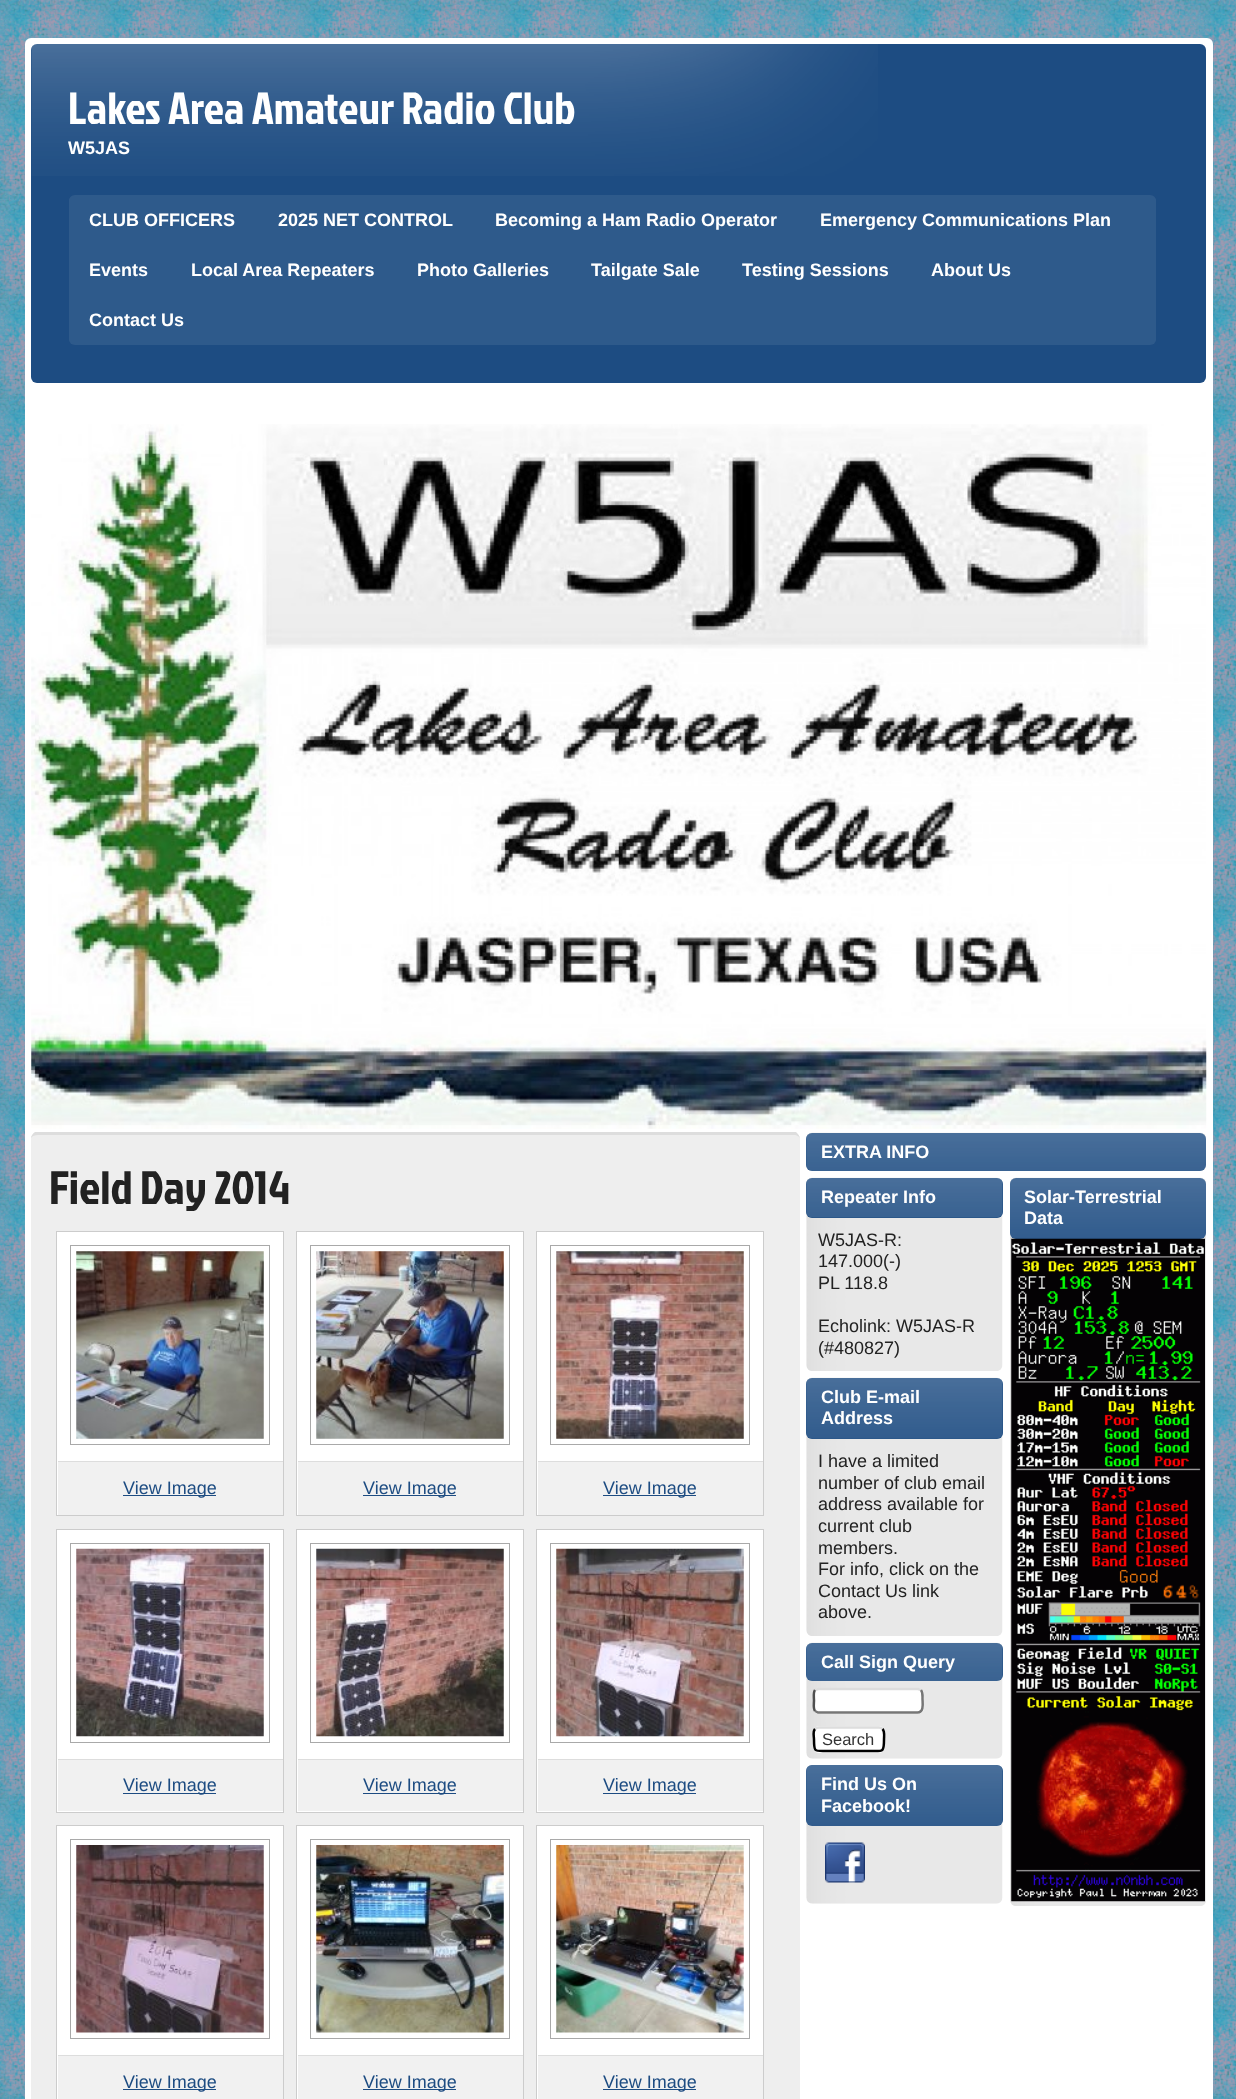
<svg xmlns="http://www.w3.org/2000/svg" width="1236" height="2099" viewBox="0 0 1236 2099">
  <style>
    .t1 { font: 45px Jockey One; fill: #fff; }
    .t2 { font: bold 18px Liberation Sans; fill: #fff; }
    .t3 { font: 46.75px Jockey One; fill: #222; }
    .t4 { font: 18px Liberation Sans; fill: #1d4c82; }
    .t5 { font: 18px Liberation Sans; fill: #222; }
    .t6 { font: 16.5px Liberation Sans; fill: #333; }
  </style>
  <rect width="100%" height="100%" fill="#fff"/>
  <image x="0" y="0" width="1236" height="2099" href="images/1.png"/>
  <rect x="25" y="38" width="1188" height="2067" rx="6" fill="#fff"/>
  <rect x="31" y="44" width="1175" height="339" rx="6" fill="#1d4c82"/>
  <image x="31" y="44" width="847" height="132" href="images/2.png"/>
  <text x="68" y="124" class="t1">Lakes Area Amateur Radio Club</text>
  <text x="68" y="154" class="t2">W5JAS</text>
  <image x="69" y="195" width="1087" height="150" href="images/3.png"/>
  <text x="89" y="226" class="t2">CLUB OFFICERS</text>
  <text x="278" y="226" class="t2">2025 NET CONTROL</text>
  <text x="495" y="226" class="t2">Becoming a Ham Radio Operator</text>
  <text x="820" y="226" class="t2">Emergency Communications Plan</text>
  <text x="89" y="276" class="t2">Events</text>
  <text x="191" y="276" class="t2">Local Area Repeaters</text>
  <text x="417" y="276" class="t2">Photo Galleries</text>
  <text x="591" y="276" class="t2">Tailgate Sale</text>
  <text x="742" y="276" class="t2">Testing Sessions</text>
  <text x="931" y="276" class="t2">About Us</text>
  <text x="89" y="326" class="t2">Contact Us</text>
  <image x="31" y="424" width="1176" height="705" href="images/4.png"/>
  <rect x="31" y="1133" width="769" height="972" rx="6" fill="#eee"/>
  <path d="M38 1135C35 1135 32 1136 31 1138V1137C32 1135 33 1133 35 1132H796C798 1134 800 1136 800 1139C800 1137 797 1135 794 1135Z" fill="#ddd"/>
  <text x="49" y="1204" class="t3">Field Day 2014</text>
  <rect x="56.5" y="1231.5" width="227" height="284" fill="#fff" stroke="#ccc"/>
  <rect x="70.5" y="1245.5" width="199" height="199" fill="none" stroke="#a9a9a9"/>
  <image x="76" y="1251" width="188" height="188" href="images/5.png"/>
  <rect x="58" y="1462" width="225" height="53" fill="#f1f1f1"/>
  <rect x="58" y="1461" width="225" height="1" fill="#ddd"/>
  <rect x="123" y="1495" width="93" height="1" fill="#1d4c82"/>
  <text x="123" y="1494" class="t4">View Image</text>
  <rect x="296.5" y="1231.5" width="227" height="284" fill="#fff" stroke="#ccc"/>
  <rect x="310.5" y="1245.5" width="199" height="199" fill="none" stroke="#a9a9a9"/>
  <image x="316" y="1251" width="188" height="188" href="images/6.png"/>
  <rect x="298" y="1462" width="225" height="53" fill="#f1f1f1"/>
  <rect x="298" y="1461" width="225" height="1" fill="#ddd"/>
  <rect x="363" y="1495" width="93" height="1" fill="#1d4c82"/>
  <text x="363" y="1494" class="t4">View Image</text>
  <rect x="536.5" y="1231.5" width="227" height="284" fill="#fff" stroke="#ccc"/>
  <rect x="550.5" y="1245.5" width="199" height="199" fill="none" stroke="#a9a9a9"/>
  <image x="556" y="1251" width="188" height="188" href="images/7.png"/>
  <rect x="538" y="1462" width="225" height="53" fill="#f1f1f1"/>
  <rect x="538" y="1461" width="225" height="1" fill="#ddd"/>
  <rect x="603" y="1495" width="93" height="1" fill="#1d4c82"/>
  <text x="603" y="1494" class="t4">View Image</text>
  <rect x="56.5" y="1529.5" width="227" height="283" fill="#fff" stroke="#ccc"/>
  <rect x="70.5" y="1543.5" width="199" height="199" fill="none" stroke="#a9a9a9"/>
  <image x="76" y="1548" width="188" height="189" href="images/8.png"/>
  <rect x="58" y="1760" width="225" height="51" fill="#f1f1f1"/>
  <rect x="58" y="1759" width="225" height="1" fill="#ddd"/>
  <rect x="123" y="1793" width="93" height="1" fill="#1d4c82"/>
  <text x="123" y="1791" class="t4">View Image</text>
  <rect x="296.5" y="1529.5" width="227" height="283" fill="#fff" stroke="#ccc"/>
  <rect x="310.5" y="1543.5" width="199" height="199" fill="none" stroke="#a9a9a9"/>
  <image x="316" y="1548" width="188" height="189" href="images/9.png"/>
  <rect x="298" y="1760" width="225" height="51" fill="#f1f1f1"/>
  <rect x="298" y="1759" width="225" height="1" fill="#ddd"/>
  <rect x="363" y="1793" width="93" height="1" fill="#1d4c82"/>
  <text x="363" y="1791" class="t4">View Image</text>
  <rect x="536.5" y="1529.5" width="227" height="283" fill="#fff" stroke="#ccc"/>
  <rect x="550.5" y="1543.5" width="199" height="199" fill="none" stroke="#a9a9a9"/>
  <image x="556" y="1548" width="188" height="189" href="images/10.png"/>
  <rect x="538" y="1760" width="225" height="51" fill="#f1f1f1"/>
  <rect x="538" y="1759" width="225" height="1" fill="#ddd"/>
  <rect x="603" y="1793" width="93" height="1" fill="#1d4c82"/>
  <text x="603" y="1791" class="t4">View Image</text>
  <rect x="56.5" y="1825.5" width="227" height="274" fill="#fff" stroke="#ccc"/>
  <rect x="70.5" y="1839.5" width="199" height="199" fill="none" stroke="#a9a9a9"/>
  <image x="76" y="1845" width="188" height="188" href="images/11.png"/>
  <rect x="58" y="2056" width="225" height="43" fill="#f1f1f1"/>
  <rect x="58" y="2055" width="225" height="1" fill="#ddd"/>
  <rect x="123" y="2089" width="93" height="1" fill="#1d4c82"/>
  <text x="123" y="2088" class="t4">View Image</text>
  <rect x="296.5" y="1825.5" width="227" height="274" fill="#fff" stroke="#ccc"/>
  <rect x="310.5" y="1839.5" width="199" height="199" fill="none" stroke="#a9a9a9"/>
  <image x="316" y="1845" width="188" height="188" href="images/12.png"/>
  <rect x="298" y="2056" width="225" height="43" fill="#f1f1f1"/>
  <rect x="298" y="2055" width="225" height="1" fill="#ddd"/>
  <rect x="363" y="2089" width="93" height="1" fill="#1d4c82"/>
  <text x="363" y="2088" class="t4">View Image</text>
  <rect x="536.5" y="1825.5" width="227" height="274" fill="#fff" stroke="#ccc"/>
  <rect x="550.5" y="1839.5" width="199" height="199" fill="none" stroke="#a9a9a9"/>
  <image x="556" y="1845" width="188" height="188" href="images/13.png"/>
  <rect x="538" y="2056" width="225" height="43" fill="#f1f1f1"/>
  <rect x="538" y="2055" width="225" height="1" fill="#ddd"/>
  <rect x="603" y="2089" width="93" height="1" fill="#1d4c82"/>
  <text x="603" y="2088" class="t4">View Image</text>
  <image x="806" y="1132" width="400" height="39" href="images/14.png"/>
  <rect x="806" y="1133" width="400" height="38" rx="6" fill="#1d4c82"/>
  <image x="806" y="1133" width="400" height="38" href="images/15.png"/>
  <text x="821" y="1158" class="t2">EXTRA INFO</text>
  <image x="806" y="1177" width="197" height="194" href="images/16.png"/>
  <rect x="806" y="1178" width="197" height="40" rx="6" fill="#1d4c82"/>
  <image x="806" y="1178" width="197" height="40" href="images/17.png"/>
  <text x="821" y="1203" class="t2">Repeater Info</text>
  <text x="818" y="1246" class="t5">W5JAS-R:</text>
  <text x="818" y="1267" class="t5">147.000(-)</text>
  <text x="818" y="1289" class="t5">PL 118.8</text>
  <text x="818" y="1332" class="t5">Echolink: W5JAS-R</text>
  <text x="818" y="1354" class="t5">(#480827)</text>
  <image x="806" y="1377" width="197" height="259" href="images/18.png"/>
  <rect x="806" y="1378" width="197" height="61" rx="6" fill="#1d4c82"/>
  <image x="806" y="1378" width="197" height="61" href="images/19.png"/>
  <text x="821" y="1403" class="t2">Club E-mail</text>
  <text x="821" y="1424" class="t2">Address</text>
  <text x="818" y="1467" class="t5">I have a limited</text>
  <text x="818" y="1489" class="t5">number of club email</text>
  <text x="818" y="1510" class="t5">address available for</text>
  <text x="818" y="1532" class="t5">current club</text>
  <text x="818" y="1554" class="t5">members.</text>
  <text x="818" y="1575" class="t5">For info, click on the</text>
  <text x="818" y="1597" class="t5">Contact Us link</text>
  <text x="818" y="1618" class="t5">above.</text>
  <image x="806" y="1642" width="197" height="117" href="images/20.png"/>
  <rect x="806" y="1643" width="197" height="38" rx="6" fill="#1d4c82"/>
  <image x="806" y="1643" width="197" height="38" href="images/21.png"/>
  <text x="821" y="1668" class="t2">Call Sign Query</text>
  <rect x="813" y="1688" width="111" height="26" rx="6" fill="#fff"/>
  <path d="M815 1690L818.5 1689H918L921 1690" fill="none" stroke="#ddd" stroke-width="2.5"/>
  <path d="M921 1690C923 1692.5 922.5 1695.5 922.5 1698.5C922.5 1702.5 924.5 1712.5 917.5 1712.5H818L815 1711" fill="none" stroke="#767676" stroke-width="2.5"/>
  <path d="M815 1711C813 1708.5 814 1703.5 814 1700.5C814 1697.5 813 1692.5 815 1690" fill="none" stroke="#4f4f4f" stroke-width="2.5"/>
  <rect x="813" y="1726" width="72" height="27" rx="6" fill="#fff"/>
  <path d="M815 1729C816 1728 817.5 1727.5 819 1727.5H879C880 1727.5 881.5 1728 882.5 1729" fill="none" stroke="#ddd" stroke-width="2.5"/>
  <path d="M882.5 1729C885 1731.5 884 1736 884 1739.5C884 1753 883 1751 869 1751H829C814.5 1751 814 1753 814 1739.5C814 1736 812.5 1731.5 815 1729" fill="none" stroke="#000" stroke-width="2.5"/>
  <text x="822" y="1745" class="t6">Search</text>
  <image x="806" y="1765" width="197" height="139" href="images/22.png"/>
  <rect x="806" y="1765" width="197" height="61" rx="6" fill="#1d4c82"/>
  <image x="806" y="1765" width="197" height="61" href="images/23.png"/>
  <text x="821" y="1790" class="t2">Find Us On</text>
  <text x="821" y="1812" class="t2">Facebook!</text>
  <image x="825" y="1842" width="40" height="41" href="images/24.png"/>
  <image x="1010" y="1177" width="196" height="729" href="images/25.png"/>
  <rect x="1010" y="1178" width="196" height="61" rx="6" fill="#1d4c82"/>
  <image x="1010" y="1178" width="196" height="61" href="images/26.png"/>
  <text x="1024" y="1203" class="t2">Solar-Terrestrial</text>
  <text x="1024" y="1224" class="t2">Data</text>
  <image x="1011" y="1238" width="194" height="664" href="images/27.png"/>
</svg>
